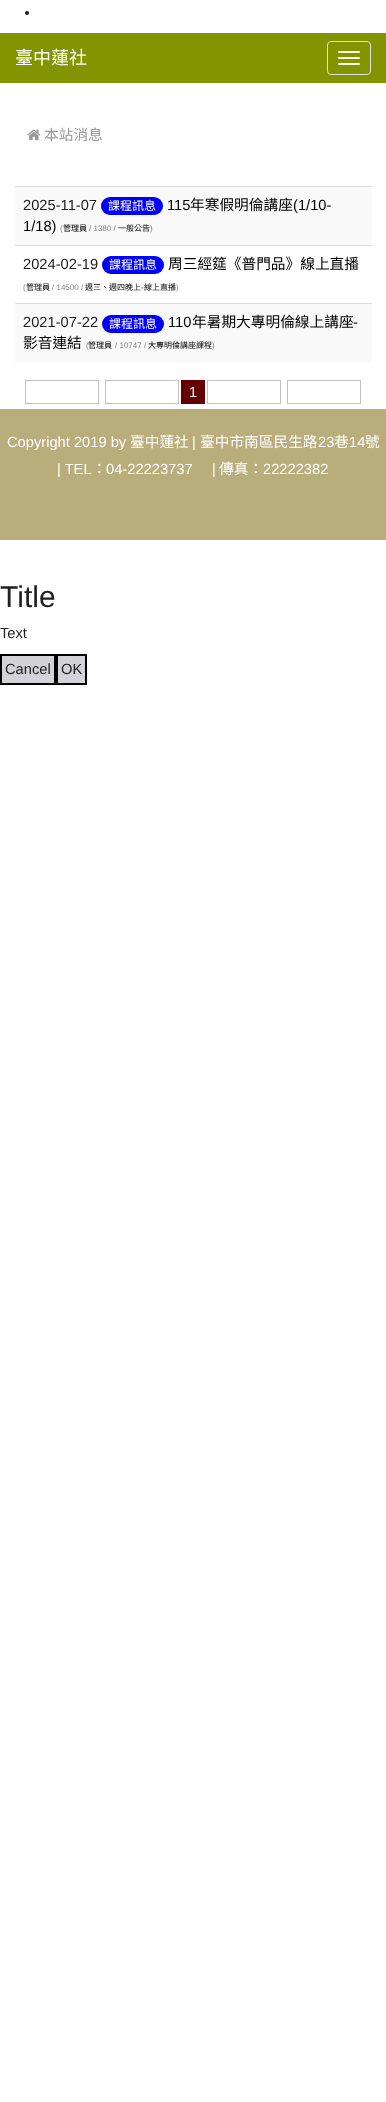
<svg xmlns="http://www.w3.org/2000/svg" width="386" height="2102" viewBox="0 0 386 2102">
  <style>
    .t1 { font: 18px Noto Sans CJK TC; fill: #fff; }
    .t2 { font: 14.7px Noto Sans CJK TC; fill: #999; }
    .t3 { font: 14.7px Liberation Sans; fill: #202020; }
    .t4 { font: 12px Noto Sans CJK TC; fill: #fff; }
    .t5 { font: 14.7px Liberation Sans; fill: #000; }
    .t6 { font: 14.7px Noto Sans CJK TC; fill: #000; }
    .t7 { font: 8px Liberation Sans; fill: #808080; }
    .t8 { font: 8px Noto Sans CJK TC; fill: #000; }
    .t9 { font: 8px Liberation Sans; fill: #000; }
    .t10 { font: 14.7px Liberation Sans; fill: #fff; }
    .t11 { font: 14.7px Noto Sans CJK TC; fill: #fff; }
    .t12 { font: 30px Liberation Sans; fill: #202020; }
  </style>
  <rect width="100%" height="100%" fill="#fff"/>
  <circle cx="27" cy="13" r="2" fill="#202020"/>
  <rect x="0" y="33" width="386" height="50" fill="#829500"/>
  <text x="15" y="64" class="t1">臺中蓮社</text>
  <rect x="327.5" y="41.5" width="43" height="33" rx="3.5" fill="none" stroke="#ddd"/>
  <rect x="338" y="51" width="22" height="2" rx="1" fill="#fcfce9"/>
  <rect x="338" y="57" width="22" height="2" rx="1" fill="#fcfce9"/>
  <rect x="338" y="63" width="22" height="2" rx="1" fill="#fcfce9"/>
  <image x="27" y="129" width="14" height="11" href="images/1.png"/>
  <text x="44" y="140" class="t2">本站消息</text>
  <rect x="15" y="187" width="356" height="58" fill="#f9f9f9"/>
  <rect x="15" y="186" width="357" height="1" fill="#ddd"/>
  <text x="23" y="210" class="t3">2025-11-07</text>
  <rect x="101" y="197" width="62" height="18" rx="9" fill="#00f"/>
  <text x="108" y="210" class="t4">課程訊息</text>
  <text x="167" y="210" class="t5">115</text>
  <text x="190" y="210" class="t6">年寒假明倫講座</text>
  <text x="293" y="210" class="t5">(1/10-</text>
  <text x="23" y="231" class="t5">1/18)</text>
  <text x="60" y="231" class="t7">(</text>
  <text x="63" y="231" class="t8">管理員</text>
  <text x="89" y="231" class="t7">/ 1380 /</text>
  <text x="118" y="231" class="t8">一般公告</text>
  <text x="150" y="231" class="t7">)</text>
  <rect x="15" y="245" width="357" height="1" fill="#ddd"/>
  <text x="23" y="269" class="t3">2024-02-19</text>
  <rect x="102" y="256" width="62" height="18" rx="9" fill="#00f"/>
  <text x="109" y="269" class="t4">課程訊息</text>
  <text x="168" y="269" class="t6">周三經筵《普門品》線上直播</text>
  <text x="23" y="290" class="t7">(</text>
  <text x="26" y="290" class="t8">管理員</text>
  <text x="52" y="290" class="t7">/ 14500 /</text>
  <text x="85" y="290" class="t8">週三、週四晚上</text>
  <text x="141" y="290" class="t9">-</text>
  <text x="144" y="290" class="t8">線上直播</text>
  <text x="176" y="290" class="t7">)</text>
  <rect x="15" y="304" width="356" height="58" fill="#f9f9f9"/>
  <rect x="15" y="303" width="357" height="1" fill="#ddd"/>
  <text x="23" y="327" class="t3">2021-07-22</text>
  <rect x="102" y="315" width="62" height="18" rx="9" fill="#00f"/>
  <text x="109" y="328" class="t4">課程訊息</text>
  <text x="168" y="327" class="t5">110</text>
  <text x="192" y="327" class="t6">年暑期大專明倫線上講座</text>
  <text x="353" y="327" class="t5">-</text>
  <text x="23" y="348" class="t6">影音連結</text>
  <text x="86" y="348" class="t7">(</text>
  <text x="88" y="348" class="t8">管理員</text>
  <text x="115" y="348" class="t7">/ 10747 /</text>
  <text x="148" y="348" class="t8">大專明倫講座課程</text>
  <text x="212" y="348" class="t7">)</text>
  <rect x="25.5" y="380.5" width="73" height="23" fill="none" stroke="#c0c0c0"/>
  <rect x="105.5" y="380.5" width="73" height="23" fill="none" stroke="#c0c0c0"/>
  <rect x="181" y="380" width="24" height="24" fill="#600"/>
  <text x="189" y="397" class="t10">1</text>
  <rect x="207.5" y="380.5" width="73" height="23" fill="none" stroke="#c0c0c0"/>
  <rect x="287.5" y="380.5" width="73" height="23" fill="none" stroke="#c0c0c0"/>
  <rect x="0" y="409" width="386" height="131" fill="#b9ad7b"/>
  <text x="7" y="447" class="t10">Copyright 2019 by</text>
  <text x="130" y="447" class="t11">臺中蓮社</text>
  <text x="192" y="447" class="t10">|</text>
  <text x="200" y="447" class="t11">臺中市南區民生路</text>
  <text x="318" y="447" class="t10">23</text>
  <text x="334" y="447" class="t11">巷</text>
  <text x="349" y="447" class="t10">14</text>
  <text x="365" y="447" class="t11">號</text>
  <text x="57" y="474" class="t10">| TEL</text>
  <text x="92" y="474" class="t11">：</text>
  <text x="106" y="474" class="t10">04-22223737</text>
  <text x="212" y="474" class="t10">|</text>
  <text x="219" y="474" class="t11">傳真：</text>
  <text x="263" y="474" class="t10">22222382</text>
  <text x="0" y="607" class="t12">Title</text>
  <text x="0" y="638" class="t3">Text</text>
  <rect x="1" y="655" width="54" height="29" fill="#d3d2d6" stroke="#000" stroke-width="2"/>
  <text x="5" y="674" class="t3">Cancel</text>
  <rect x="57" y="655" width="29" height="29" fill="#d3d2d6" stroke="#000" stroke-width="2"/>
  <text x="61" y="674" class="t3">OK</text>
</svg>
